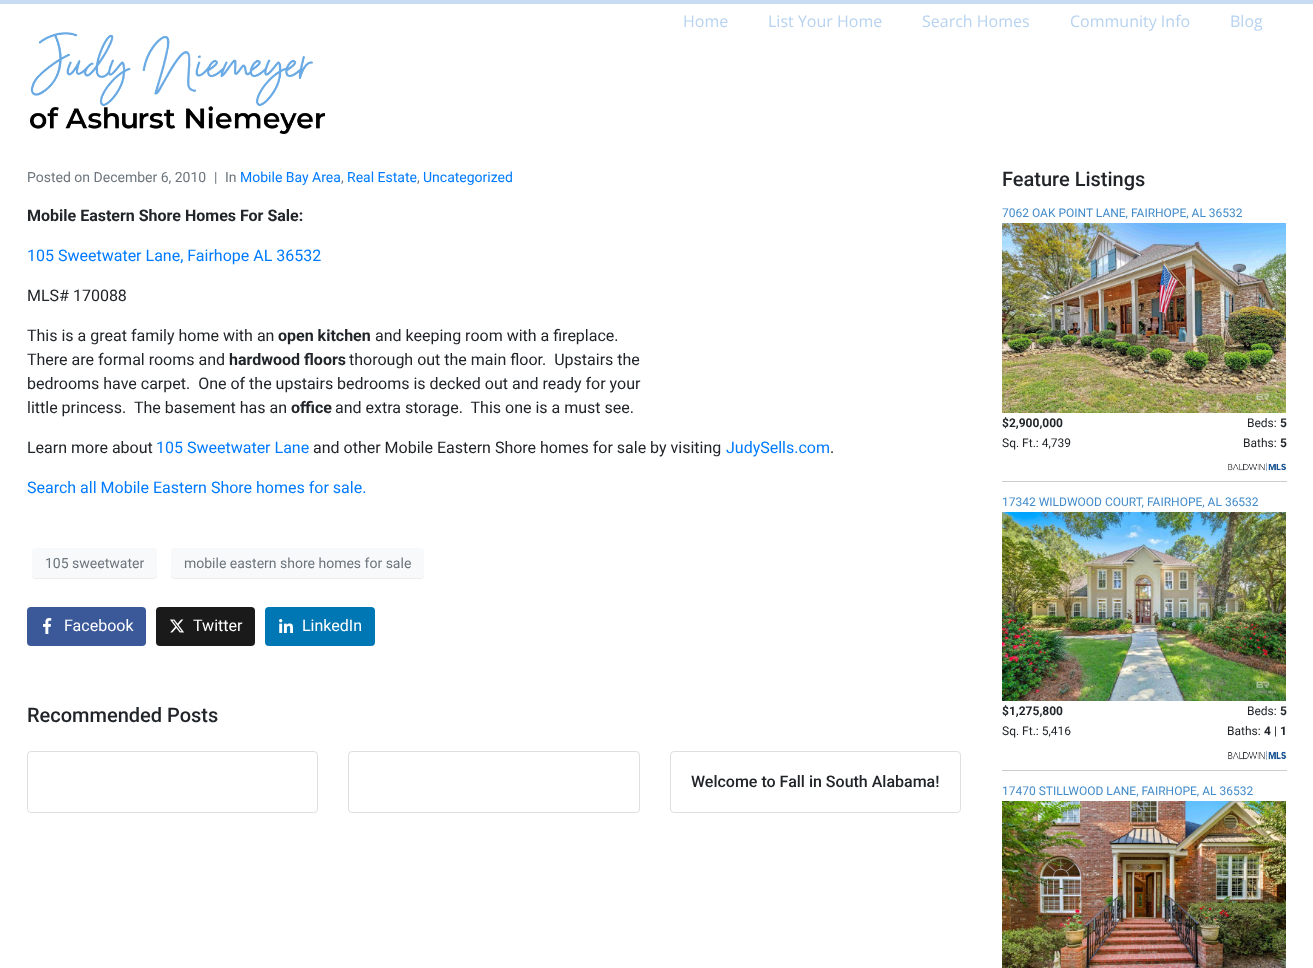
<svg xmlns="http://www.w3.org/2000/svg" width="1313" height="968" viewBox="0 0 1313 968">
  <style>
    .t1 { font: 16px Open Sans; fill: #b7d3f0; }
    .t2 { font: 14px Roboto; fill: #6c757d; }
    .t3 { font: 14px Roboto; fill: #007bff; }
    .t4 { font: bold 16px Roboto; fill: #212529; }
    .t5 { font: 16px Roboto; fill: #007bff; }
    .t6 { font: 16px Roboto; fill: #212529; }
    .t7 { font: 16px Roboto; fill: #fff; }
    .t8 { font: 500 20px Roboto; fill: #212529; }
    .t9 { font: 500 16px Roboto; fill: #212529; }
    .t10 { font: 12px Roboto; fill: #428bca; }
    .t11 { font: bold 12px Roboto; fill: #212529; }
    .t12 { font: 12px Roboto; fill: #212529; }
  </style>
  <rect width="100%" height="100%" fill="#fff"/>
  <rect x="0" y="0" width="1313" height="4" fill="#c8ddf3"/>
  <text x="683" y="27" class="t1">Home</text>
  <text x="768" y="27" class="t1">List Your Home</text>
  <text x="922" y="27" class="t1">Search Homes</text>
  <text x="1070" y="27" class="t1">Community Info</text>
  <text x="1230" y="27" class="t1">Blog</text>
  <image x="30" y="32" width="295" height="102" href="images/1.png"/>
  <text x="27" y="182" class="t2">Posted on December 6, 2010</text>
  <text x="214" y="182" class="t2">|</text>
  <text x="225" y="182" class="t2">In</text>
  <text x="240" y="182" class="t3">Mobile Bay Area</text>
  <text x="341" y="182" class="t2">,</text>
  <text x="347" y="182" class="t3">Real Estate</text>
  <text x="417" y="182" class="t2">,</text>
  <text x="423" y="182" class="t3">Uncategorized</text>
  <text x="27" y="221" class="t4">Mobile Eastern Shore Homes For Sale:</text>
  <text x="27" y="261" class="t5">105 Sweetwater Lane, Fairhope AL 36532</text>
  <text x="27" y="301" class="t6">MLS# 170088</text>
  <text x="27" y="341" class="t6">This is a great family home with an</text>
  <text x="278" y="341" class="t4">open kitchen</text>
  <text x="375" y="341" class="t6">and keeping room with a fireplace.</text>
  <text x="27" y="365" class="t6">There are formal rooms and</text>
  <text x="229" y="365" class="t4">hardwood floors</text>
  <text x="349" y="365" class="t6" xml:space="preserve">thorough out the main floor.  Upstairs the</text>
  <text x="27" y="389" class="t6" xml:space="preserve">bedrooms have carpet.  One of the upstairs bedrooms is decked out and ready for your</text>
  <text x="27" y="413" class="t6" xml:space="preserve">little princess.  The basement has an</text>
  <text x="291" y="413" class="t4">office</text>
  <text x="335" y="413" class="t6" xml:space="preserve">and extra storage.  This one is a must see.</text>
  <text x="27" y="453" class="t6">Learn more about</text>
  <text x="156" y="453" class="t5">105 Sweetwater Lane</text>
  <text x="313" y="453" class="t6">and other Mobile Eastern Shore homes for sale by visiting</text>
  <text x="726" y="453" class="t5">JudySells.com</text>
  <text x="830" y="453" class="t6">.</text>
  <text x="27" y="493" class="t5">Search all Mobile Eastern Shore homes for sale.</text>
  <rect x="32" y="549" width="125" height="30" rx="4" fill="#00000012" filter="blur(0.5px)"/>
  <rect x="32" y="548" width="125" height="30" rx="4" fill="#f8f9fa"/>
  <text x="45" y="568" class="t2">105 sweetwater</text>
  <rect x="171" y="549" width="253" height="30" rx="4" fill="#00000012" filter="blur(0.5px)"/>
  <rect x="171" y="548" width="253" height="30" rx="4" fill="#f8f9fa"/>
  <text x="184" y="568" class="t2">mobile eastern shore homes for sale</text>
  <rect x="27" y="607" width="119" height="39" rx="4" fill="#3b5998"/>
  <image x="43" y="618" width="9" height="16" href="images/2.png"/>
  <text x="64" y="631" class="t7">Facebook</text>
  <rect x="156" y="607" width="99" height="39" rx="4" fill="#1a1a1a"/>
  <image x="170" y="619" width="15" height="14" href="images/3.png"/>
  <text x="193" y="631" class="t7">Twitter</text>
  <rect x="265" y="607" width="110" height="39" rx="4" fill="#0077b5"/>
  <image x="279" y="619" width="14" height="14" href="images/4.png"/>
  <text x="302" y="631" class="t7">LinkedIn</text>
  <text x="27" y="722" class="t8">Recommended Posts</text>
  <rect x="27.5" y="751.5" width="290" height="61" rx="3.5" fill="none" stroke="#dfdfdf"/>
  <rect x="348.5" y="751.5" width="291" height="61" rx="3.5" fill="none" stroke="#dfdfdf"/>
  <rect x="670.5" y="751.5" width="290" height="61" rx="3.5" fill="none" stroke="#dfdfdf"/>
  <text x="691" y="787" class="t9">Welcome to Fall in South Alabama!</text>
  <text x="1002" y="186" class="t8">Feature Listings</text>
  <text x="1002" y="217" class="t10">7062 OAK POINT LANE, FAIRHOPE, AL 36532</text>
  <image x="1002" y="223" width="284" height="190" href="images/5.png"/>
  <text x="1002" y="427" class="t11">$2,900,000</text>
  <text x="1247" y="427" class="t12">Beds:</text>
  <text x="1280" y="427" class="t11">5</text>
  <text x="1002" y="447" class="t12">Sq. Ft.: 4,739</text>
  <text x="1243" y="447" class="t12">Baths:</text>
  <text x="1280" y="447" class="t11">5</text>
  <image x="1228" y="463" width="59" height="8" href="images/6.png"/>
  <rect x="1002" y="481" width="285" height="1" fill="#ccc"/>
  <text x="1002" y="506" class="t10">17342 WILDWOOD COURT, FAIRHOPE, AL 36532</text>
  <image x="1002" y="512" width="284" height="189" href="images/7.png"/>
  <text x="1002" y="715" class="t11">$1,275,800</text>
  <text x="1247" y="715" class="t12">Beds:</text>
  <text x="1280" y="715" class="t11">5</text>
  <text x="1002" y="735" class="t12">Sq. Ft.: 5,416</text>
  <text x="1227" y="735" class="t12">Baths:</text>
  <text x="1264" y="735" class="t11">4</text>
  <text x="1274" y="735" class="t12">|</text>
  <text x="1280" y="735" class="t11">1</text>
  <image x="1228" y="751" width="59" height="9" href="images/8.png"/>
  <rect x="1002" y="770" width="285" height="1" fill="#ccc"/>
  <text x="1002" y="795" class="t10">17470 STILLWOOD LANE, FAIRHOPE, AL 36532</text>
  <image x="1002" y="801" width="284" height="167" href="images/9.png"/>
</svg>
